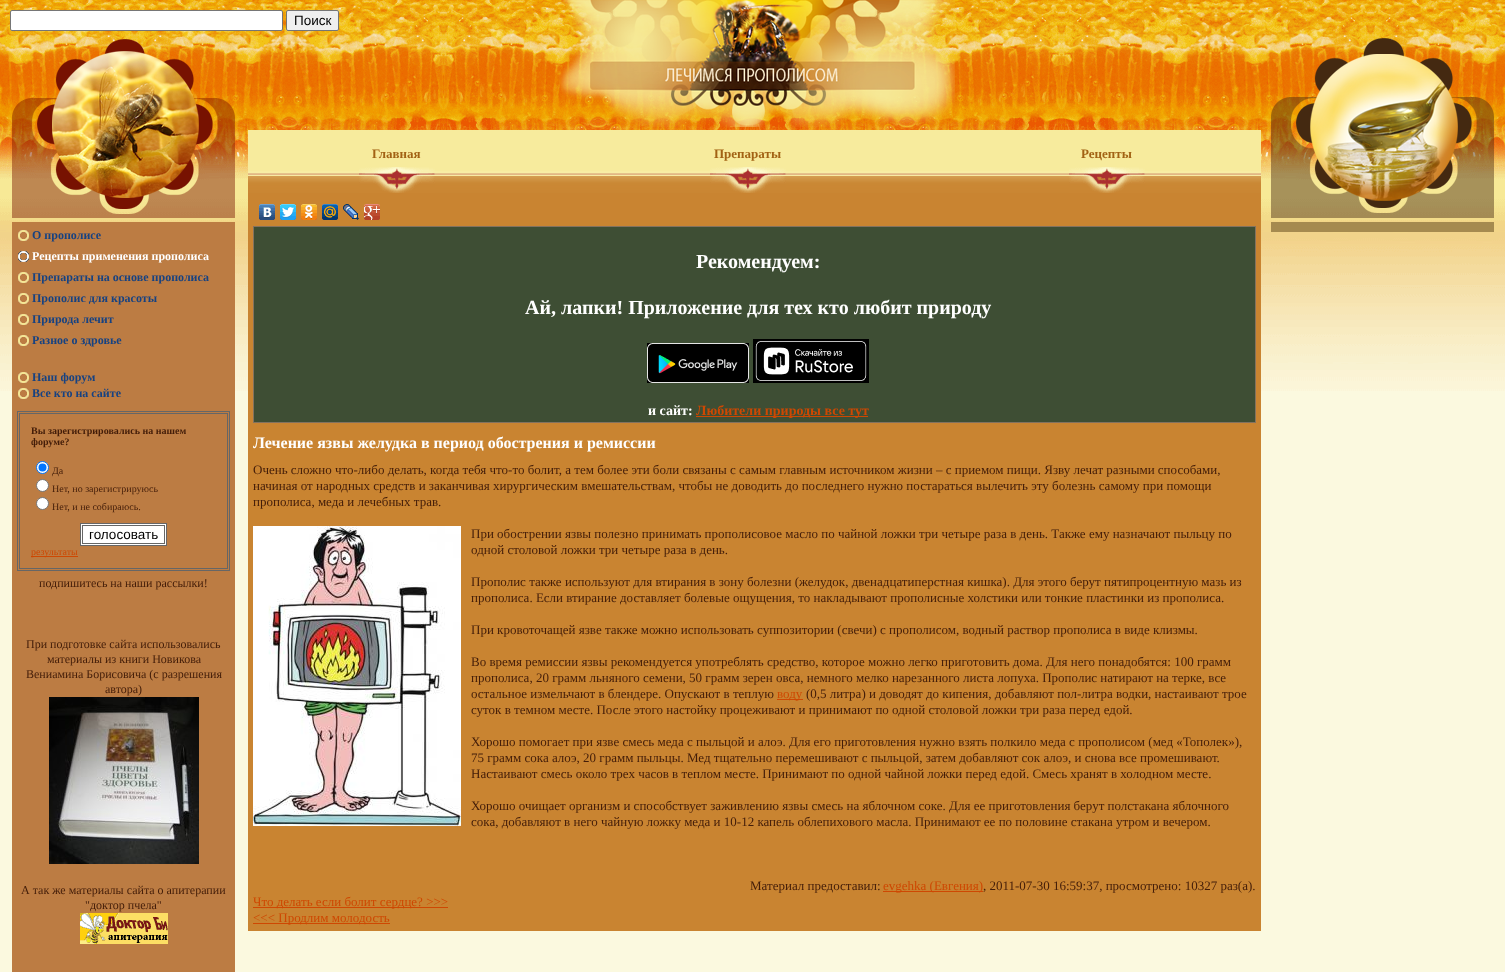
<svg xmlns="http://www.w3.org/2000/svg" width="1505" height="972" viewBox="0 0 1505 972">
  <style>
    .t1 { font: 13.5px Liberation Sans; fill: #000; }
    .t2 { font: bold 12px Liberation Serif; fill: #164282; }
    .t3 { font: bold 12px Liberation Serif; fill: #fff; }
    .t4 { font: bold 10px Liberation Serif; fill: #431d09; }
    .t5 { font: 10px Liberation Serif; fill: #431d09; }
    .t6 { font: 10px Liberation Serif; fill: #ce4802; }
    .t7 { font: 12px Liberation Serif; fill: #431d09; }
    .t8 { font: bold 13px Liberation Serif; fill: #a26214; }
    .t9 { font: bold 20px Liberation Serif; fill: #fff; }
    .t10 { font: bold 14px Liberation Serif; fill: #fff; }
    .t11 { font: bold 14px Liberation Serif; fill: #ce4802; }
    .t12 { font: bold 16px Liberation Serif; fill: #fff; }
    .t13 { font: 13px Liberation Serif; fill: #431d09; }
    .t14 { font: 13px Liberation Serif; fill: #ce4802; }
  </style>
  <rect width="100%" height="100%" fill="#fbf9df"/>
  <image x="0" y="0" width="1505" height="391" href="images/1.png"/>
  <rect x="10.5" y="10.5" width="272" height="20" rx="1.5" fill="#fff" stroke="#767676"/>
  <rect x="286.5" y="10.5" width="52" height="20" rx="1.5" fill="#efefef" stroke="#767676"/>
  <text x="294" y="25" class="t1">Поиск</text>
  <image x="12" y="31" width="224" height="187" href="images/2.png"/>
  <rect x="12" y="222" width="223" height="750" fill="#bc7c43"/>
  <image x="18" y="230" width="11" height="11" href="images/3.png"/>
  <text x="32" y="239" class="t2">О прополисе</text>
  <image x="18" y="251" width="11" height="11" href="images/4.png"/>
  <text x="32" y="260" class="t3">Рецепты применения прополиса</text>
  <image x="18" y="272" width="11" height="11" href="images/3.png"/>
  <text x="32" y="281" class="t2">Препараты на основе прополиса</text>
  <image x="18" y="293" width="11" height="11" href="images/3.png"/>
  <text x="32" y="302" class="t2">Прополис для красоты</text>
  <image x="18" y="314" width="11" height="11" href="images/3.png"/>
  <text x="32" y="323" class="t2">Природа лечит</text>
  <image x="18" y="335" width="11" height="11" href="images/3.png"/>
  <text x="32" y="344" class="t2">Разное о здровье</text>
  <image x="18" y="372" width="11" height="11" href="images/3.png"/>
  <text x="32" y="381" class="t2">Наш форум</text>
  <image x="18" y="388" width="11" height="11" href="images/3.png"/>
  <text x="32" y="397" class="t2">Все кто на сайте</text>
  <rect x="17.5" y="411.5" width="212" height="159" fill="none" stroke="#666"/>
  <rect x="19.5" y="413.5" width="208" height="155" fill="none" stroke="#666"/>
  <text x="31" y="434" class="t4">Вы зарегистрировались на нашем</text>
  <text x="31" y="445" class="t4">форуме?</text>
  <circle cx="42.5" cy="467.5" r="6" fill="#fff" stroke="#0075ff"/>
  <circle cx="42.5" cy="467.5" r="4" fill="#0075ff"/>
  <text x="52" y="474" class="t5">Да</text>
  <circle cx="42.5" cy="485.5" r="6" fill="#fff" stroke="#767676"/>
  <text x="52" y="492" class="t5">Нет, но зарегистрируюсь</text>
  <circle cx="42.5" cy="503.5" r="6" fill="#fff" stroke="#767676"/>
  <text x="52" y="510" class="t5">Нет, и не собираюсь.</text>
  <rect x="80.5" y="523.5" width="86" height="22" fill="#fff" stroke="#666"/>
  <rect x="82.5" y="525.5" width="82" height="18" fill="none" stroke="#666"/>
  <text x="89" y="539" class="t1">голосовать</text>
  <rect x="31" y="556" width="47" height="1" fill="#ce4802"/>
  <text x="31" y="555" class="t6">результаты</text>
  <text x="39" y="587" class="t7">подпишитесь на наши рассылки!</text>
  <text x="26" y="648" class="t7">При подготовке сайта использовались</text>
  <text x="47" y="663" class="t7">материалы из книги Новикова</text>
  <text x="26" y="678" class="t7">Вениамина Борисовича (с разрешения</text>
  <text x="105" y="693" class="t7">автора)</text>
  <image x="49" y="697" width="150" height="167" href="images/5.png"/>
  <text x="21" y="894" class="t7">А так же материалы сайта о апитерапии</text>
  <text x="85" y="909" class="t7">"доктор пчела"</text>
  <image x="80" y="913" width="88" height="31" href="images/6.png"/>
  <image x="559" y="0" width="396" height="127" href="images/7.png"/>
  <rect x="248" y="130" width="1013" height="41" fill="#f7eb9d"/>
  <image x="248" y="171" width="1013" height="22" href="images/8.png"/>
  <image x="359" y="167" width="76" height="26" href="images/9.png"/>
  <text x="372" y="158" class="t8">Главная</text>
  <image x="710" y="167" width="76" height="26" href="images/9.png"/>
  <text x="714" y="158" class="t8">Препараты</text>
  <image x="1069" y="167" width="76" height="26" href="images/9.png"/>
  <text x="1081" y="158" class="t8">Рецепты</text>
  <rect x="248" y="193" width="1013" height="738" fill="#c98431"/>
  <image x="259" y="204" width="16" height="16" href="images/10.png"/>
  <image x="280" y="204" width="16" height="16" href="images/11.png"/>
  <image x="301" y="204" width="16" height="16" href="images/12.png"/>
  <image x="322" y="204" width="16" height="16" href="images/13.png"/>
  <image x="343" y="204" width="16" height="16" href="images/14.png"/>
  <image x="364" y="204" width="16" height="16" href="images/15.png"/>
  <rect x="253.5" y="226.5" width="1002" height="196" fill="#3e4e34" stroke="#84725e"/>
  <text x="696" y="268" class="t9">Рекомендуем:</text>
  <text x="525" y="314" class="t9">Ай, лапки! Приложение для тех кто любит природу</text>
  <rect x="753" y="339" width="116" height="44" fill="#000"/>
  <rect x="647" y="343" width="102" height="40" fill="#000"/>
  <image x="755" y="341" width="112" height="40" href="images/16.png"/>
  <image x="647" y="343" width="102" height="40" href="images/17.png"/>
  <text x="648" y="415" class="t10">и сайт:</text>
  <rect x="696" y="416" width="172" height="1" fill="#ce4802"/>
  <text x="696" y="415" class="t11">Любители природы все тут</text>
  <text x="253" y="448" class="t12">Лечение язвы желудка в период обострения и ремиссии</text>
  <text x="253" y="474" class="t13">Очень сложно что-либо делать, когда тебя что-то болит, а тем более эти боли связаны с самым главным источником жизни – с приемом пищи. Язву лечат разными способами,</text>
  <text x="253" y="490" class="t13">начиная от народных средств и заканчивая хирургическим вмешательствам, чтобы не доводить до последнего нужно постараться вылечить эту болезнь самому при помощи</text>
  <text x="253" y="506" class="t13">прополиса, меда и лечебных трав.</text>
  <image x="253" y="526" width="208" height="300" href="images/18.png"/>
  <text x="471" y="538" class="t13">При обострении язвы полезно принимать прополисовое масло по чайной ложки три четыре раза в день. Также ему назначают пыльцу по</text>
  <text x="471" y="554" class="t13">одной столовой ложки три четыре раза в день.</text>
  <text x="471" y="586" class="t13">Прополис также используют для втирания в зону болезни (желудок, двенадцатиперстная кишка). Для этого берут пятипроцентную мазь из</text>
  <text x="471" y="602" class="t13">прополиса. Если втирание доставляет болевые ощущения, то накладывают прополисные холстики или тонкие пластинки из прополиса.</text>
  <text x="471" y="634" class="t13">При кровоточащей язве также можно использовать суппозитории (свечи) с прополисом, водный раствор прополиса в виде клизмы.</text>
  <text x="471" y="666" class="t13">Во время ремиссии язвы рекомендуется употреблять средство, которое можно легко приготовить дома. Для него понадобятся: 100 грамм</text>
  <text x="471" y="682" class="t13">прополиса, 20 грамм льняного семени, 50 грамм зерен овса, немного мелко нарезанного листа лопуха. Прополис натирают на терке, все</text>
  <text x="471" y="698" class="t13">остальное измельчают в блендере. Опускают в теплую</text>
  <rect x="777" y="699" width="26" height="1" fill="#ce4802"/>
  <text x="777" y="698" class="t14">воду</text>
  <text x="806" y="698" class="t13">(0,5 литра) и доводят до кипения, добавляют пол-литра водки, настаивают трое</text>
  <text x="471" y="714" class="t13">суток в темном месте. После этого настойку процеживают и принимают по одной столовой ложки три раза перед едой.</text>
  <text x="471" y="746" class="t13">Хорошо помогает при язве смесь меда с пыльцой и алоэ. Для его приготовления нужно взять полкило меда с прополисом (мед «Тополек»),</text>
  <text x="471" y="762" class="t13">75 грамм сока алоэ, 20 грамм пыльцы. Мед тщательно перемешивают с пыльцой, затем добавляют сок алоэ, и снова все промешивают.</text>
  <text x="471" y="778" class="t13">Настаивают смесь около трех часов в теплом месте. Принимают по одной чайной ложки перед едой. Смесь хранят в холодном месте.</text>
  <text x="471" y="810" class="t13">Хорошо очищает организм и способствует заживлению язвы смесь на яблочном соке. Для ее приготовления берут полстакана яблочного</text>
  <text x="471" y="826" class="t13">сока, добавляют в него чайную ложку меда и 10-12 капель облепихового масла. Принимают ее по половине стакана утром и вечером.</text>
  <text x="750" y="890" class="t13">Материал предоставил:</text>
  <rect x="883" y="891" width="100" height="1" fill="#ce4802"/>
  <text x="883" y="890" class="t14">evgehka (Евгения)</text>
  <text x="983" y="890" class="t13">, 2011-07-30 16:59:37, просмотрено: 10327 раз(а).</text>
  <rect x="253" y="907" width="195" height="1" fill="#ce4802"/>
  <text x="253" y="906" class="t14">Что делать если болит сердце? &gt;&gt;&gt;</text>
  <rect x="253" y="923" width="137" height="1" fill="#ce4802"/>
  <text x="253" y="922" class="t14">&lt;&lt;&lt; Продлим молодость</text>
  <image x="1271" y="38" width="223" height="180" href="images/19.png"/>
  <rect x="1271" y="222" width="223" height="10" fill="#a58a4f"/>
</svg>
